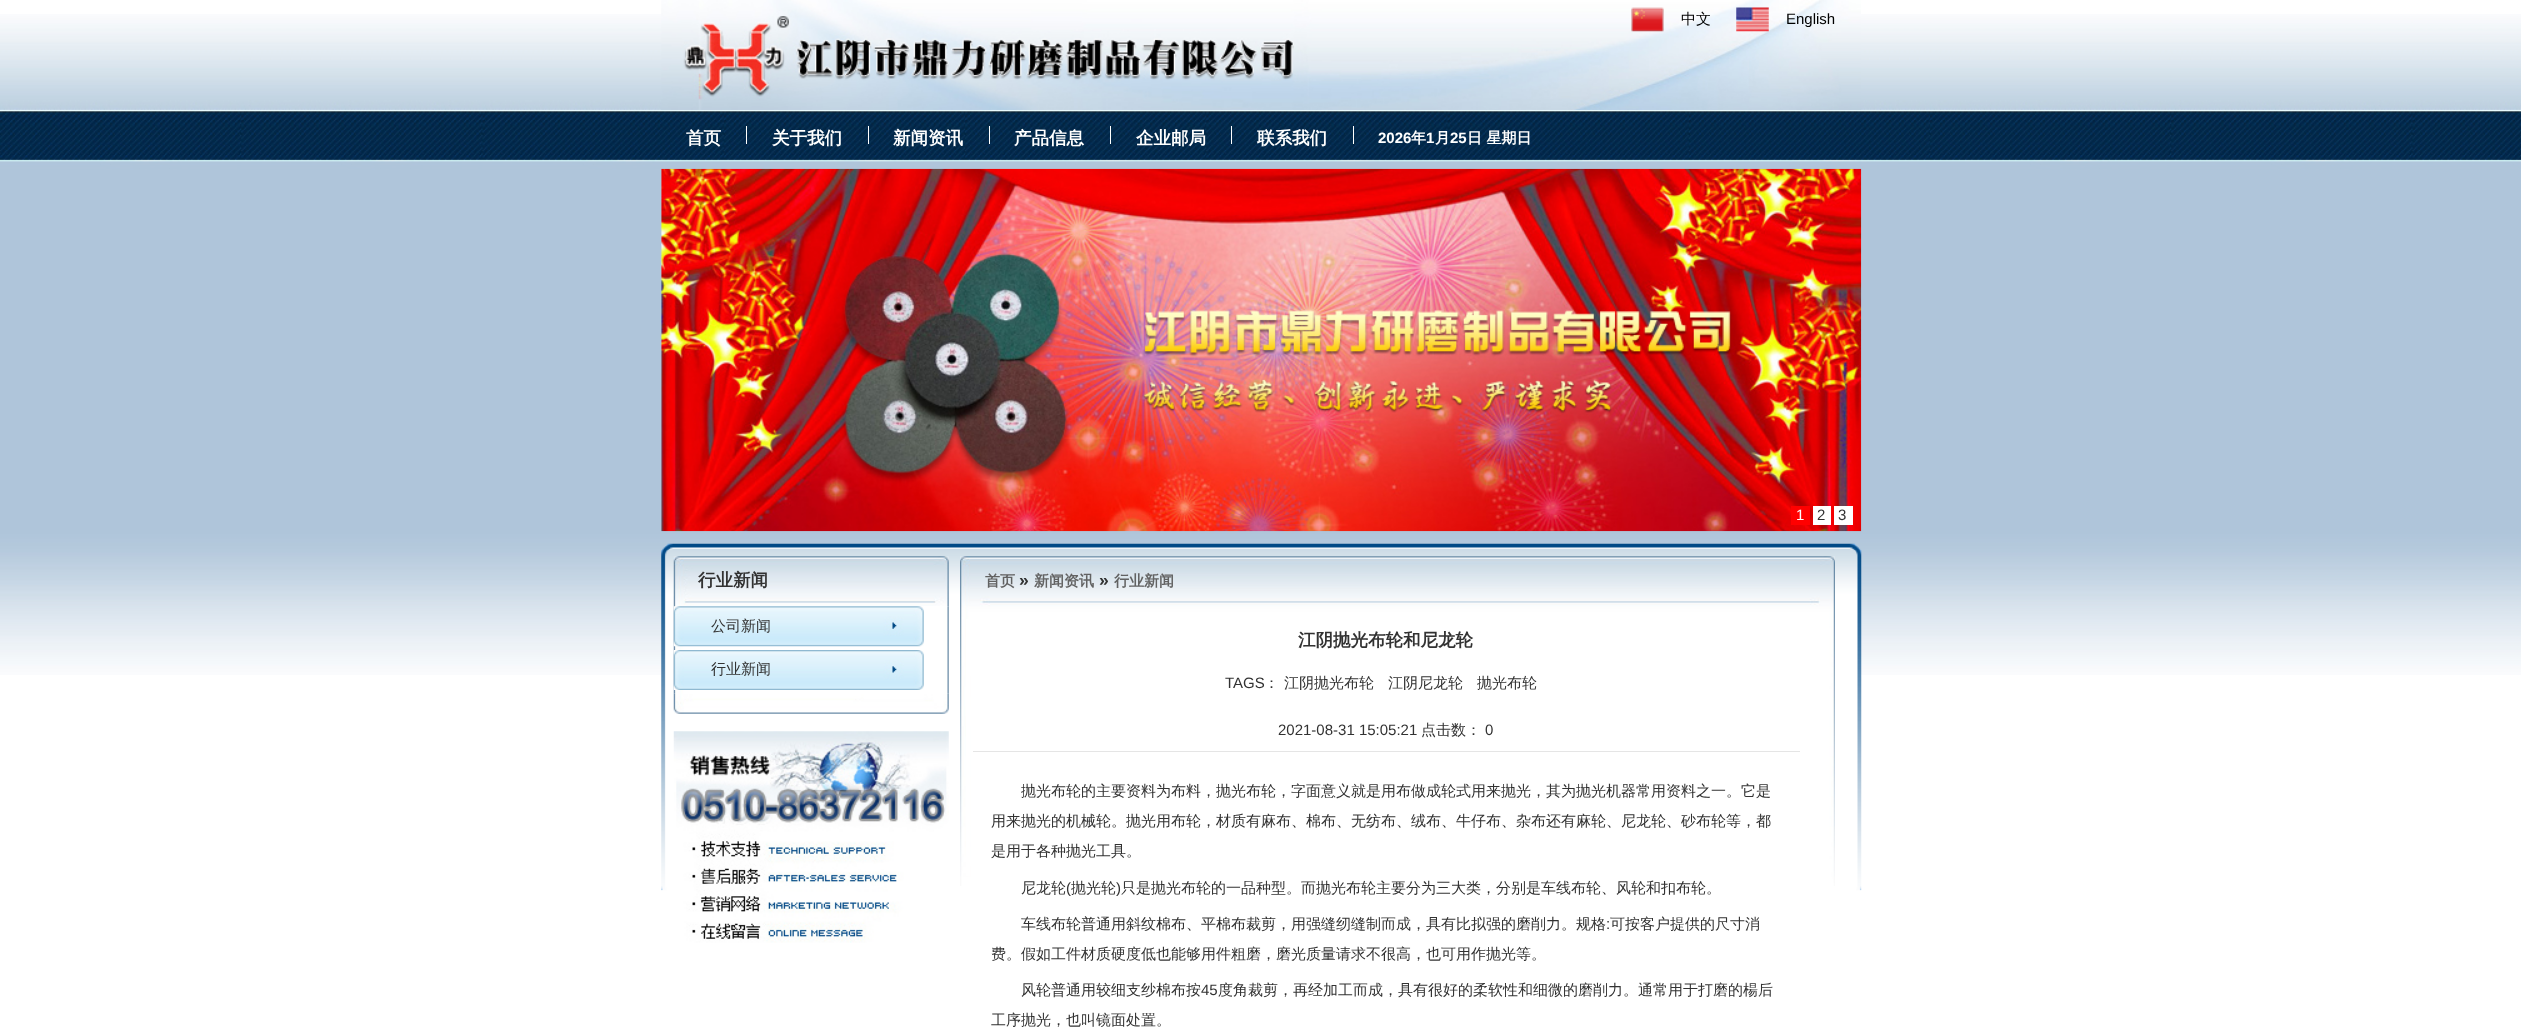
<svg xmlns="http://www.w3.org/2000/svg" width="2521" height="1031" viewBox="0 0 2521 1031">
  <style>
    .t1 { font: 500 15px WenQuanYi Zen Hei; fill: #000; }
    .t2 { font: 15px Liberation Sans; fill: #000; }
    .t3 { font: bold 17.5px WenQuanYi Zen Hei; fill: #fff; }
    .t4 { font: bold 15px Liberation Sans; fill: #fff; }
    .t5 { font: bold 15px WenQuanYi Zen Hei; fill: #fff; }
    .t6 { font: 15px Liberation Sans; fill: #fff; }
    .t7 { font: 15px Liberation Sans; fill: #323232; }
    .t8 { font: bold 17.5px WenQuanYi Zen Hei; fill: #323232; }
    .t9 { font: 500 15px WenQuanYi Zen Hei; fill: #323232; }
    .t10 { font: bold 15px WenQuanYi Zen Hei; fill: #626262; }
    .t11 { font: bold 17.5px Liberation Sans; fill: #323232; }
  </style>
  <rect width="100%" height="100%" fill="#fff"/>
  <image x="0" y="14" width="2521" height="661" href="images/1.png"/>
  <image x="661" y="0" width="1200" height="110" href="images/2.png"/>
  <image x="1631" y="7" width="33" height="25" href="images/3.png"/>
  <text x="1681" y="24" class="t1">中文</text>
  <image x="1736" y="7" width="33" height="25" href="images/4.png"/>
  <text x="1786" y="24" class="t2">English</text>
  <text x="686" y="144" class="t3">首页</text>
  <rect x="746" y="126" width="1" height="18" fill="#fff"/>
  <text x="772" y="144" class="t3">关于我们</text>
  <rect x="868" y="126" width="1" height="18" fill="#fff"/>
  <text x="893" y="144" class="t3">新闻资讯</text>
  <rect x="989" y="126" width="1" height="18" fill="#fff"/>
  <text x="1014" y="144" class="t3">产品信息</text>
  <rect x="1110" y="126" width="1" height="18" fill="#fff"/>
  <text x="1136" y="144" class="t3">企业邮局</text>
  <rect x="1231" y="126" width="1" height="18" fill="#fff"/>
  <text x="1257" y="144" class="t3">联系我们</text>
  <rect x="1353" y="126" width="1" height="18" fill="#fff"/>
  <text x="1378" y="143" class="t4">2026</text>
  <text x="1411" y="143" class="t5">年</text>
  <text x="1426" y="143" class="t4">1</text>
  <text x="1435" y="143" class="t5">月</text>
  <text x="1450" y="143" class="t4">25</text>
  <text x="1467" y="143" class="t5">日 星期日</text>
  <image x="661" y="168" width="1201" height="364" href="images/5.png"/>
  <rect x="1791" y="506" width="19" height="19" fill="#f00"/>
  <text x="1796" y="520" class="t6">1</text>
  <rect x="1813" y="506" width="18" height="19" fill="#fff"/>
  <text x="1817" y="520" class="t7">2</text>
  <rect x="1834" y="506" width="19" height="19" fill="#fff"/>
  <text x="1838" y="520" class="t7">3</text>
  <image x="661" y="543" width="1201" height="348" href="images/6.png"/>
  <image x="673" y="556" width="276" height="51" href="images/7.png"/>
  <text x="698" y="586" class="t8">行业新闻</text>
  <image x="673" y="606" width="276" height="88" href="images/8.png"/>
  <image x="673" y="606" width="251" height="41" href="images/9.png"/>
  <text x="711" y="631" class="t9">公司新闻</text>
  <image x="673" y="650" width="251" height="40" href="images/10.png"/>
  <text x="711" y="674" class="t9">行业新闻</text>
  <image x="673" y="693" width="276" height="21" href="images/11.png"/>
  <image x="673" y="731" width="276" height="212" href="images/12.png"/>
  <image x="960" y="556" width="875" height="330" href="images/13.png"/>
  <text x="985" y="586" class="t10">首页</text>
  <text x="1019" y="586" class="t11">»</text>
  <text x="1034" y="586" class="t10">新闻资讯</text>
  <text x="1099" y="586" class="t11">»</text>
  <text x="1114" y="586" class="t10">行业新闻</text>
  <rect x="966" y="619" width="4" height="257" fill="#fff"/>
  <text x="1298" y="646" class="t8">江阴抛光布轮和尼龙轮</text>
  <text x="1225" y="688" class="t7">TAGS</text>
  <text x="1264" y="688" class="t9">：</text>
  <text x="1284" y="688" class="t9">江阴抛光布轮</text>
  <text x="1388" y="688" class="t9">江阴尼龙轮</text>
  <text x="1477" y="688" class="t9">抛光布轮</text>
  <text x="1278" y="735" class="t7">2021-08-31 15:05:21</text>
  <text x="1421" y="735" class="t9">点击数：</text>
  <text x="1485" y="735" class="t7">0</text>
  <rect x="973" y="751" width="827" height="1" fill="#e5e5e5"/>
  <text x="1021" y="796" class="t9">抛光布轮的主要资料为布料，抛光布轮，字面意义就是用布做成轮式用来抛光，其为抛光机器常用资料之一。它是</text>
  <text x="991" y="826" class="t9">用来抛光的机械轮。抛光用布轮，材质有麻布、棉布、无纺布、绒布、牛仔布、杂布还有麻轮、尼龙轮、砂布轮等，都</text>
  <text x="991" y="856" class="t9">是用于各种抛光工具。</text>
  <text x="1021" y="893" class="t9">尼龙轮</text>
  <text x="1066" y="893" class="t7">(</text>
  <text x="1071" y="893" class="t9">抛光轮</text>
  <text x="1116" y="893" class="t7">)</text>
  <text x="1121" y="893" class="t9">只是抛光布轮的一品种型。而抛光布轮主要分为三大类，分别是车线布轮、风轮和扣布轮。</text>
  <text x="1021" y="929" class="t9">车线布轮普通用斜纹棉布、平棉布裁剪，用强缝纫缝制而成，具有比拟强的磨削力。规格</text>
  <text x="1606" y="929" class="t7">:</text>
  <text x="1610" y="929" class="t9">可按客户提供的尺寸消</text>
  <text x="991" y="959" class="t9">费。假如工件材质硬度低也能够用件粗磨，磨光质量请求不很高，也可用作抛光等。</text>
  <text x="1021" y="995" class="t9">风轮普通用较细支纱棉布按</text>
  <text x="1201" y="995" class="t7">45</text>
  <text x="1218" y="995" class="t9">度角裁剪，再经加工而成，具有很好的柔软性和细微的磨削力。通常用于打磨的楊后</text>
  <text x="991" y="1025" class="t9">工序抛光，也叫镜面处置。</text>
</svg>
